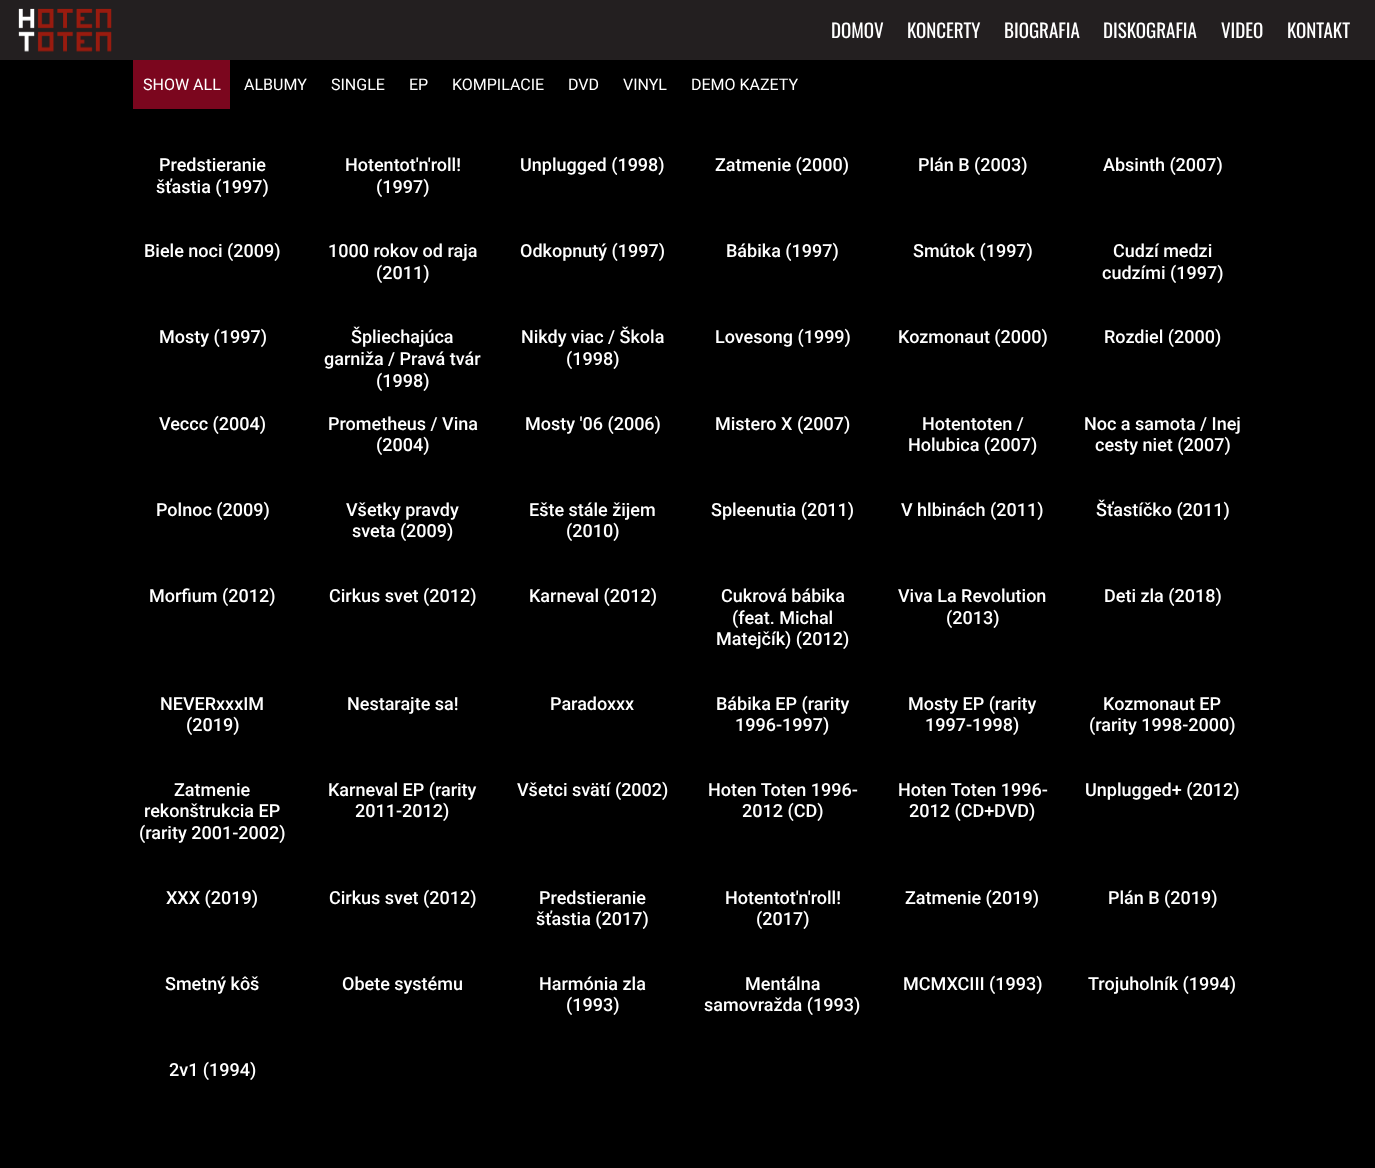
<svg xmlns="http://www.w3.org/2000/svg" width="1375" height="1168" viewBox="0 0 1375 1168">
  <style>
    .t1 { font: 19px Oswald; fill: #fff; }
    .t2 { font: 16px Roboto; fill: #fff; }
    .t3 { font: 500 18px Roboto; fill: #fff; }
  </style>
  <rect width="100%" height="100%" fill="#000"/>
  <rect x="0" y="0" width="1375" height="60" fill="#231f20"/>
  <image x="18" y="8" width="94" height="44" href="images/1.png"/>
  <text x="831" y="38" class="t1">DOMOV</text>
  <text x="907" y="38" class="t1">KONCERTY</text>
  <text x="1004" y="38" class="t1">BIOGRAFIA</text>
  <text x="1103" y="38" class="t1">DISKOGRAFIA</text>
  <text x="1221" y="38" class="t1">VIDEO</text>
  <text x="1287" y="38" class="t1">KONTAKT</text>
  <rect x="133" y="60" width="97" height="49" fill="#7b061e"/>
  <text x="143" y="90" class="t2">SHOW ALL</text>
  <text x="244" y="90" class="t2">ALBUMY</text>
  <text x="331" y="90" class="t2">SINGLE</text>
  <text x="409" y="90" class="t2">EP</text>
  <text x="452" y="90" class="t2">KOMPILACIE</text>
  <text x="568" y="90" class="t2">DVD</text>
  <text x="623" y="90" class="t2">VINYL</text>
  <text x="691" y="90" class="t2">DEMO KAZETY</text>
  <text x="159" y="171" class="t3">Predstieranie</text>
  <text x="156" y="193" class="t3">šťastia (1997)</text>
  <text x="345" y="171" class="t3">Hotentot'n'roll!</text>
  <text x="376" y="193" class="t3">(1997)</text>
  <text x="520" y="171" class="t3">Unplugged (1998)</text>
  <text x="715" y="171" class="t3">Zatmenie (2000)</text>
  <text x="918" y="171" class="t3">Plán B (2003)</text>
  <text x="1103" y="171" class="t3">Absinth (2007)</text>
  <text x="144" y="257" class="t3">Biele noci (2009)</text>
  <text x="328" y="257" class="t3">1000 rokov od raja</text>
  <text x="376" y="279" class="t3">(2011)</text>
  <text x="520" y="257" class="t3">Odkopnutý (1997)</text>
  <text x="726" y="257" class="t3">Bábika (1997)</text>
  <text x="913" y="257" class="t3">Smútok (1997)</text>
  <text x="1113" y="257" class="t3">Cudzí medzi</text>
  <text x="1102" y="279" class="t3">cudzími (1997)</text>
  <text x="159" y="343" class="t3">Mosty (1997)</text>
  <text x="351" y="343" class="t3">Špliechajúca</text>
  <text x="324" y="365" class="t3">garniža / Pravá tvár</text>
  <text x="376" y="387" class="t3">(1998)</text>
  <text x="521" y="343" class="t3">Nikdy viac / Škola</text>
  <text x="566" y="365" class="t3">(1998)</text>
  <text x="715" y="343" class="t3">Lovesong (1999)</text>
  <text x="898" y="343" class="t3">Kozmonaut (2000)</text>
  <text x="1104" y="343" class="t3">Rozdiel (2000)</text>
  <text x="159" y="430" class="t3">Veccc (2004)</text>
  <text x="328" y="430" class="t3">Prometheus / Vina</text>
  <text x="376" y="451" class="t3">(2004)</text>
  <text x="525" y="430" class="t3">Mosty '06 (2006)</text>
  <text x="715" y="430" class="t3">Mistero X (2007)</text>
  <text x="922" y="430" class="t3">Hotentoten /</text>
  <text x="908" y="451" class="t3">Holubica (2007)</text>
  <text x="1084" y="430" class="t3">Noc a samota / Inej</text>
  <text x="1095" y="451" class="t3">cesty niet (2007)</text>
  <text x="156" y="516" class="t3">Polnoc (2009)</text>
  <text x="346" y="516" class="t3">Všetky pravdy</text>
  <text x="352" y="537" class="t3">sveta (2009)</text>
  <text x="529" y="516" class="t3">Ešte stále žijem</text>
  <text x="566" y="537" class="t3">(2010)</text>
  <text x="711" y="516" class="t3">Spleenutia (2011)</text>
  <text x="901" y="516" class="t3">V hlbinách (2011)</text>
  <text x="1096" y="516" class="t3">Šťastíčko (2011)</text>
  <text x="149" y="602" class="t3">Morfium (2012)</text>
  <text x="329" y="602" class="t3">Cirkus svet (2012)</text>
  <text x="529" y="602" class="t3">Karneval (2012)</text>
  <text x="721" y="602" class="t3">Cukrová bábika</text>
  <text x="732" y="624" class="t3">(feat. Michal</text>
  <text x="716" y="645" class="t3">Matejčík) (2012)</text>
  <text x="898" y="602" class="t3">Viva La Revolution</text>
  <text x="946" y="624" class="t3">(2013)</text>
  <text x="1104" y="602" class="t3">Deti zla (2018)</text>
  <text x="160" y="710" class="t3">NEVERxxxIM</text>
  <text x="186" y="731" class="t3">(2019)</text>
  <text x="347" y="710" class="t3">Nestarajte sa!</text>
  <text x="550" y="710" class="t3">Paradoxxx</text>
  <text x="716" y="710" class="t3">Bábika EP (rarity</text>
  <text x="735" y="731" class="t3">1996-1997)</text>
  <text x="908" y="710" class="t3">Mosty EP (rarity</text>
  <text x="925" y="731" class="t3">1997-1998)</text>
  <text x="1103" y="710" class="t3">Kozmonaut EP</text>
  <text x="1089" y="731" class="t3">(rarity 1998-2000)</text>
  <text x="174" y="796" class="t3">Zatmenie</text>
  <text x="144" y="817" class="t3">rekonštrukcia EP</text>
  <text x="139" y="839" class="t3">(rarity 2001-2002)</text>
  <text x="328" y="796" class="t3">Karneval EP (rarity</text>
  <text x="355" y="817" class="t3">2011-2012)</text>
  <text x="517" y="796" class="t3">Všetci svätí (2002)</text>
  <text x="708" y="796" class="t3">Hoten Toten 1996-</text>
  <text x="742" y="817" class="t3">2012 (CD)</text>
  <text x="898" y="796" class="t3">Hoten Toten 1996-</text>
  <text x="909" y="817" class="t3">2012 (CD+DVD)</text>
  <text x="1085" y="796" class="t3">Unplugged+ (2012)</text>
  <text x="166" y="904" class="t3">XXX (2019)</text>
  <text x="329" y="904" class="t3">Cirkus svet (2012)</text>
  <text x="539" y="904" class="t3">Predstieranie</text>
  <text x="536" y="925" class="t3">šťastia (2017)</text>
  <text x="725" y="904" class="t3">Hotentot'n'roll!</text>
  <text x="756" y="925" class="t3">(2017)</text>
  <text x="905" y="904" class="t3">Zatmenie (2019)</text>
  <text x="1108" y="904" class="t3">Plán B (2019)</text>
  <text x="165" y="990" class="t3">Smetný kôš</text>
  <text x="342" y="990" class="t3">Obete systému</text>
  <text x="539" y="990" class="t3">Harmónia zla</text>
  <text x="566" y="1011" class="t3">(1993)</text>
  <text x="745" y="990" class="t3">Mentálna</text>
  <text x="704" y="1011" class="t3">samovražda (1993)</text>
  <text x="903" y="990" class="t3">MCMXCIII (1993)</text>
  <text x="1088" y="990" class="t3">Trojuholník (1994)</text>
  <text x="169" y="1076" class="t3">2v1 (1994)</text>
</svg>
